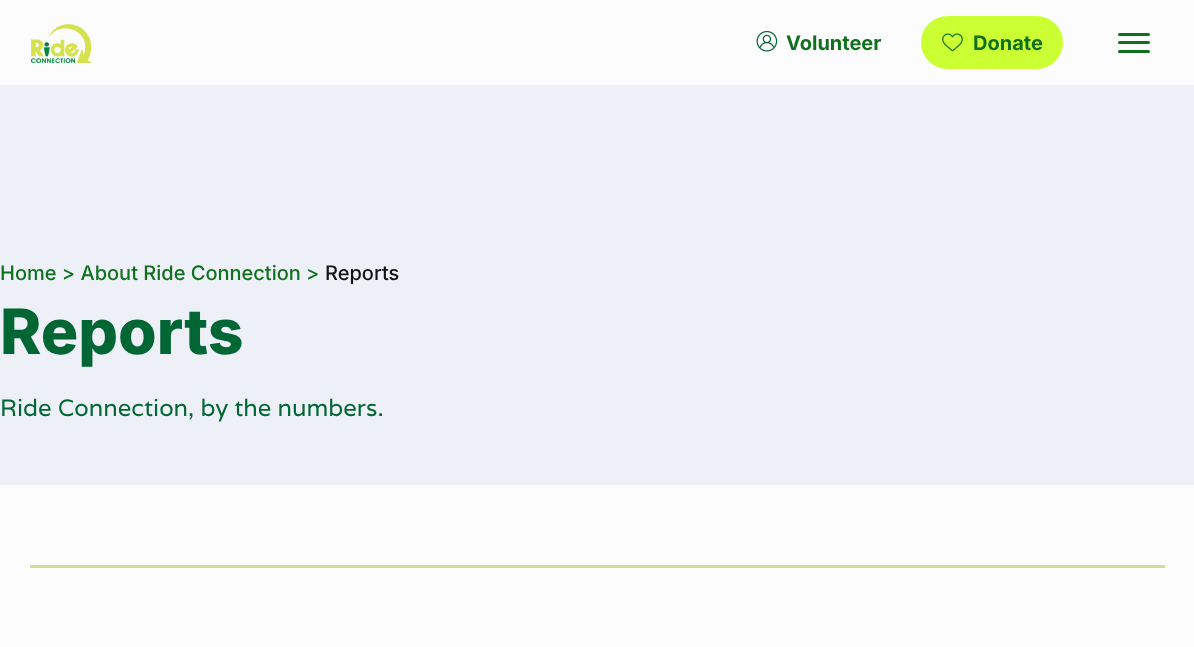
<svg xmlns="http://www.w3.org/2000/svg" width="1194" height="647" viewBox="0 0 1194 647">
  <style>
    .t1 { font: bold 20px Inter; fill: #0f701e; }
    .t2 { font: 500 20px Inter; fill: #0f701e; }
    .t3 { font: 500 20px Inter; fill: #131313; }
    .t4 { font: 800 62.5px Inter; fill: #063; }
    .t5 { font: 23.75px Varela; fill: #063; }
  </style>
  <rect width="100%" height="100%" fill="#fcfcfc"/>
  <image x="30" y="24" width="63" height="40" href="images/1.png"/>
  <image x="756" y="30" width="22" height="22" href="images/2.png"/>
  <text x="786" y="50" class="t1">Volunteer</text>
  <rect x="921" y="16" width="142" height="53" rx="26.5" fill="#cf3"/>
  <image x="942" y="33" width="21" height="19" href="images/3.png"/>
  <text x="973" y="50" class="t1">Donate</text>
  <rect x="1118" y="33" width="32" height="3" rx="1.5" fill="#0f701e"/>
  <rect x="1118" y="41" width="32" height="3" rx="1.5" fill="#0f701e"/>
  <rect x="1118" y="50" width="32" height="3" rx="1.5" fill="#0f701e"/>
  <rect x="0" y="85" width="1194" height="400" fill="#eef0f7"/>
  <text x="0" y="280" class="t2">Home &gt; About Ride Connection &gt;</text>
  <text x="325" y="280" class="t3">Reports</text>
  <text x="0" y="354" class="t4">Reports</text>
  <text x="0" y="416" class="t5">Ride Connection, by the numbers.</text>
  <rect x="30" y="565" width="1135" height="3" fill="#cfdd97"/>
</svg>
